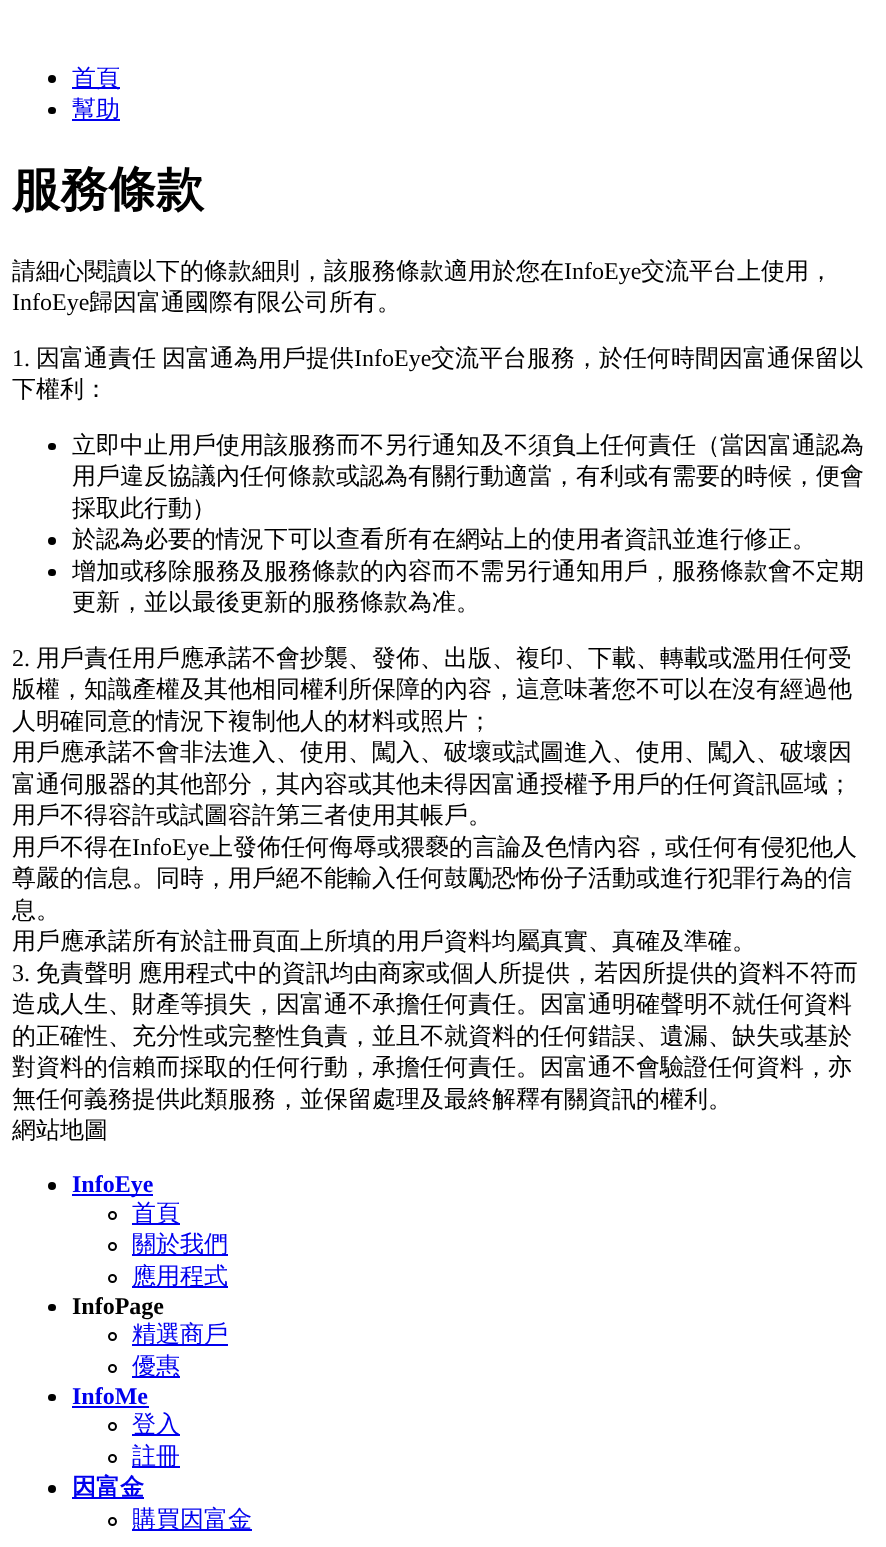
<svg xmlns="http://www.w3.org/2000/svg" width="886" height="1547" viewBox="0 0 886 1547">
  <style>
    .t1 { font: 500 24px WenQuanYi Zen Hei; fill: #00e; }
    .t2 { font: bold 48px WenQuanYi Zen Hei; fill: #000; }
    .t3 { font: 500 24px WenQuanYi Zen Hei; fill: #000; }
    .t4 { font: 24px Liberation Serif; fill: #000; }
    .t5 { font: bold 24px Liberation Serif; fill: #00e; }
    .t6 { font: bold 24px Liberation Serif; fill: #000; }
    .t7 { font: bold 24px WenQuanYi Zen Hei; fill: #00e; }
  </style>
  <rect width="100%" height="100%" fill="#fff"/>
  <circle cx="52" cy="79" r="4" fill="#000"/>
  <rect x="72" y="87" width="48" height="2" fill="#00e"/>
  <text x="72" y="86" class="t1">首頁</text>
  <rect x="48" y="107" width="8" height="7" rx="3.5" fill="#000"/>
  <rect x="72" y="119" width="48" height="2" fill="#00e"/>
  <text x="72" y="117" class="t1">幫助</text>
  <text x="12" y="206" class="t2">服務條款</text>
  <text x="12" y="279" class="t3">請細心閱讀以下的條款細則，該服務條款適用於您在</text>
  <text x="564" y="279" class="t4">InfoEye</text>
  <text x="641" y="279" class="t3">交流平台上使用，</text>
  <text x="12" y="310" class="t4">InfoEye</text>
  <text x="89" y="310" class="t3">歸因富通國際有限公司所有。</text>
  <text x="12" y="366" class="t4">1.</text>
  <text x="36" y="366" class="t3">因富通責任</text>
  <text x="162" y="366" class="t3">因富通為用戶提供</text>
  <text x="354" y="366" class="t4">InfoEye</text>
  <text x="431" y="366" class="t3">交流平台服務，於任何時間因富通保留以</text>
  <text x="12" y="397" class="t3">下權利：</text>
  <rect x="48" y="443" width="8" height="7" rx="3.5" fill="#000"/>
  <text x="72" y="453" class="t3">立即中止用戶使用該服務而不另行通知及不須負上任何責任（當因富通認為</text>
  <text x="72" y="484" class="t3">用戶違反協議內任何條款或認為有關行動適當，有利或有需要的時候，便會</text>
  <text x="72" y="516" class="t3">採取此行動）</text>
  <circle cx="52" cy="541" r="4" fill="#000"/>
  <text x="72" y="547" class="t3">於認為必要的情況下可以查看所有在網站上的使用者資訊並進行修正。</text>
  <rect x="48" y="569" width="8" height="7" rx="3.5" fill="#000"/>
  <text x="72" y="579" class="t3">增加或移除服務及服務條款的內容而不需另行通知用戶，服務條款會不定期</text>
  <text x="72" y="610" class="t3">更新，並以最後更新的服務條款為准。</text>
  <text x="12" y="666" class="t4">2.</text>
  <text x="36" y="666" class="t3">用戶責任用戶應承諾不會抄襲、發佈、出版、複印、下載、轉載或濫用任何受</text>
  <text x="12" y="697" class="t3">版權，知識產權及其他相同權利所保障的內容，這意味著您不可以在沒有經過他</text>
  <text x="12" y="729" class="t3">人明確同意的情況下複制他人的材料或照片；</text>
  <text x="12" y="760" class="t3">用戶應承諾不會非法進入、使用、闖入、破壞或試圖進入、使用、闖入、破壞因</text>
  <text x="12" y="792" class="t3">富通伺服器的其他部分，其內容或其他未得因富通授權予用戶的任何資訊區域；</text>
  <text x="12" y="823" class="t3">用戶不得容許或試圖容許第三者使用其帳戶。</text>
  <text x="12" y="855" class="t3">用戶不得在</text>
  <text x="132" y="855" class="t4">InfoEye</text>
  <text x="209" y="855" class="t3">上發佈任何侮辱或猥褻的言論及色情內容，或任何有侵犯他人</text>
  <text x="12" y="886" class="t3">尊嚴的信息。同時，用戶絕不能輸入任何鼓勵恐怖份子活動或進行犯罪行為的信</text>
  <text x="12" y="918" class="t3">息。</text>
  <text x="12" y="949" class="t3">用戶應承諾所有於註冊頁面上所填的用戶資料均屬真實、真確及準確。</text>
  <text x="12" y="981" class="t4">3.</text>
  <text x="36" y="981" class="t3">免責聲明</text>
  <text x="138" y="981" class="t3">應用程式中的資訊均由商家或個人所提供，若因所提供的資料不符而</text>
  <text x="12" y="1012" class="t3">造成人生、財產等損失，因富通不承擔任何責任。因富通明確聲明不就任何資料</text>
  <text x="12" y="1044" class="t3">的正確性、充分性或完整性負責，並且不就資料的任何錯誤、遺漏、缺失或基於</text>
  <text x="12" y="1075" class="t3">對資料的信賴而採取的任何行動，承擔任何責任。因富通不會驗證任何資料，亦</text>
  <text x="12" y="1107" class="t3">無任何義務提供此類服務，並保留處理及最終解釋有關資訊的權利。</text>
  <text x="12" y="1138" class="t3">網站地圖</text>
  <circle cx="52" cy="1186" r="4" fill="#000"/>
  <rect x="72" y="1194" width="81" height="2" fill="#00e"/>
  <text x="72" y="1192" class="t5">InfoEye</text>
  <circle cx="112.5" cy="1215.5" r="3.5" fill="none" stroke="#000" stroke-width="2"/>
  <rect x="132" y="1223" width="48" height="2" fill="#00e"/>
  <text x="132" y="1221" class="t1">首頁</text>
  <circle cx="112.5" cy="1246.5" r="3.5" fill="none" stroke="#000" stroke-width="2"/>
  <rect x="132" y="1254" width="96" height="2" fill="#00e"/>
  <text x="132" y="1252" class="t1">關於我們</text>
  <circle cx="112.5" cy="1278.5" r="3.5" fill="none" stroke="#000" stroke-width="2"/>
  <rect x="132" y="1286" width="96" height="2" fill="#00e"/>
  <text x="132" y="1284" class="t1">應用程式</text>
  <rect x="48" y="1304" width="8" height="7" rx="3.5" fill="#000"/>
  <text x="72" y="1314" class="t6">InfoPage</text>
  <circle cx="112.5" cy="1336.5" r="3.5" fill="none" stroke="#000" stroke-width="2"/>
  <rect x="132" y="1344" width="96" height="2" fill="#00e"/>
  <text x="132" y="1342" class="t1">精選商戶</text>
  <circle cx="112.5" cy="1368.5" r="3.5" fill="none" stroke="#000" stroke-width="2"/>
  <rect x="132" y="1376" width="48" height="2" fill="#00e"/>
  <text x="132" y="1374" class="t1">優惠</text>
  <rect x="48" y="1394" width="8" height="7" rx="3.5" fill="#000"/>
  <text x="72" y="1404" class="t5">InfoMe</text>
  <rect x="72" y="1406" width="77" height="2" fill="#00e"/>
  <circle cx="112.5" cy="1426.5" r="3.5" fill="none" stroke="#000" stroke-width="2"/>
  <rect x="132" y="1434" width="48" height="2" fill="#00e"/>
  <text x="132" y="1432" class="t1">登入</text>
  <circle cx="112.5" cy="1458.5" r="3.5" fill="none" stroke="#000" stroke-width="2"/>
  <rect x="132" y="1466" width="48" height="2" fill="#00e"/>
  <text x="132" y="1464" class="t1">註冊</text>
  <circle cx="52" cy="1489" r="4" fill="#000"/>
  <rect x="72" y="1497" width="72" height="2" fill="#00e"/>
  <text x="72" y="1495" class="t7">因富金</text>
  <circle cx="112.5" cy="1521.5" r="3.5" fill="none" stroke="#000" stroke-width="2"/>
  <rect x="132" y="1529" width="120" height="2" fill="#00e"/>
  <text x="132" y="1527" class="t1">購買因富金</text>
</svg>
